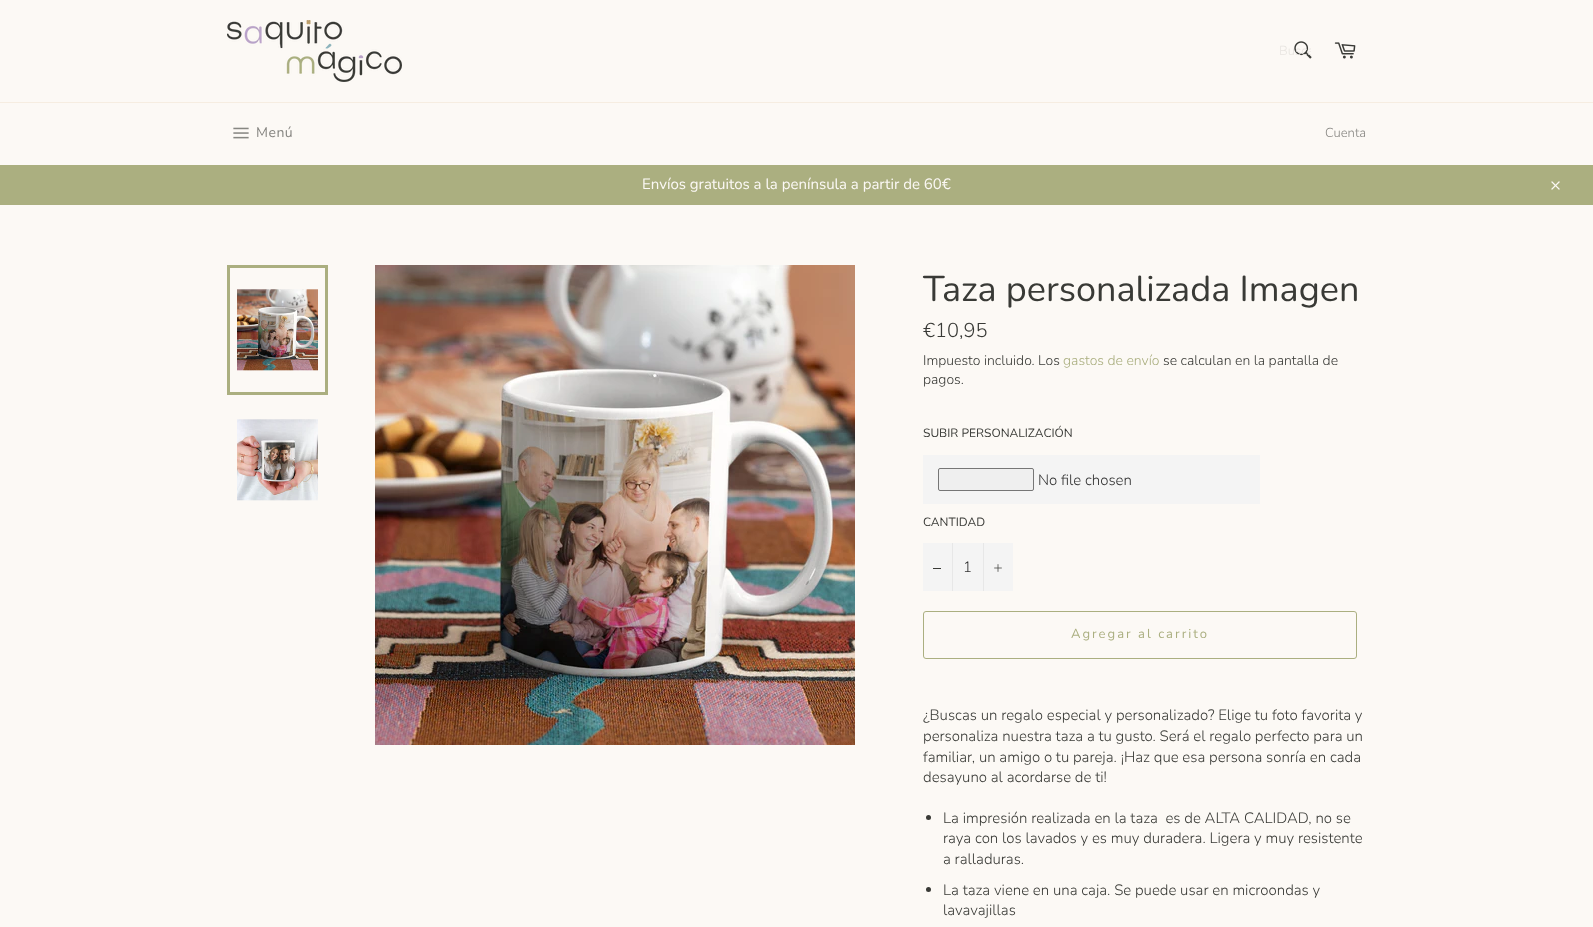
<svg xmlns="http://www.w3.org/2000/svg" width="1593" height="927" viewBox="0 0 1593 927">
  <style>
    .t1 { font: 300 13px Nunito; fill: #e8e5e1; }
    .t2 { font: 14px Nunito; letter-spacing: 0.5px; fill: #878682; }
    .t3 { font: 300 13px Nunito; fill: #878682; }
    .t4 { font: 15px Nunito; fill: #fcf9f5; }
    .t5 { font: 36px Nunito; fill: #393a36; }
    .t6 { font: 300 20px Nunito; fill: #393a36; }
    .t7 { font: 300 14px Nunito; fill: #393a36; }
    .t8 { font: 300 14px Nunito; fill: #abaf80; }
    .t9 { font: 12px Nunito; fill: #393a36; }
    .t10 { font: 300 15px Nunito; fill: #333; }
    .t11 { font: 13px Nunito; letter-spacing: 2px; fill: #abaf80; }
    .t12 { font: 300 15px Nunito; fill: #393a36; }
  </style>
  <defs>
    <clipPath id="clip1"><rect x="1279" y="42" width="32" height="18"/></clipPath>
  </defs>
  <rect width="100%" height="100%" fill="#fcf9f5"/>
  <image x="227" y="20" width="175" height="62" href="images/1.png"/>
  <image x="1294" y="41" width="18" height="18" href="images/2.png"/>
  <g clip-path="url(#clip1)">
    <text x="1279" y="55" class="t1">Busca</text>
  </g>
  <image x="1334" y="42" width="22" height="17" href="images/3.png"/>
  <rect x="0" y="102" width="1593" height="1" fill="#f6ede1"/>
  <image x="233" y="127" width="16" height="12" href="images/4.png"/>
  <text x="256" y="137" class="t2">Menú</text>
  <text x="1325" y="137" class="t3">Cuenta</text>
  <rect x="0" y="165" width="1593" height="40" fill="#abaf80"/>
  <text x="642" y="189" class="t4">Envíos gratuitos a la península a partir de 60€</text>
  <image x="1551" y="181" width="9" height="9" href="images/5.png"/>
  <image x="237" y="289" width="81" height="82" href="images/6.png"/>
  <rect x="228.5" y="266.5" width="98" height="127" fill="none" stroke="#abaf80" stroke-width="3"/>
  <image x="237" y="419" width="81" height="82" href="images/7.png"/>
  <image x="375" y="265" width="480" height="480" href="images/8.png"/>
  <text x="923" y="301" class="t5">Taza personalizada Imagen</text>
  <text x="923" y="337" class="t6">€10,95</text>
  <text x="923" y="365" class="t7">Impuesto incluido. Los</text>
  <text x="1063" y="365" class="t8">gastos de envío</text>
  <text x="1163" y="365" class="t7">se calculan en la pantalla de</text>
  <text x="923" y="384" class="t7">pagos.</text>
  <text x="923" y="437" class="t9">SUBIR PERSONALIZACIÓN</text>
  <rect x="923" y="455" width="337" height="49" fill="#f4f4f4"/>
  <rect x="938.5" y="468.5" width="95" height="22" rx="1.5" fill="#efefef" stroke="#767676"/>
  <text x="1038" y="485" class="t10">No file chosen</text>
  <text x="923" y="526" class="t9">CANTIDAD</text>
  <rect x="923" y="543" width="90" height="48" fill="#f4f4f4"/>
  <rect x="952" y="543" width="1" height="48" fill="#e7e7e7"/>
  <rect x="933" y="568" width="8" height="1" fill="#393a36"/>
  <text x="963" y="572" class="t10">1</text>
  <rect x="983" y="543" width="1" height="48" fill="#e7e7e7"/>
  <image x="994" y="564" width="8" height="8" href="images/9.png"/>
  <rect x="923.5" y="611.5" width="433" height="47" rx="2.5" fill="none" stroke="#abaf80"/>
  <text x="1071" y="638" class="t11">Agregar al carrito</text>
  <text x="923" y="720" class="t12">¿Buscas un regalo especial y personalizado? Elige tu foto favorita y</text>
  <text x="923" y="741" class="t12">personaliza nuestra taza a tu gusto. Será el regalo perfecto para un</text>
  <text x="923" y="762" class="t12">familiar, un amigo o tu pareja. ¡Haz que esa persona sonría en cada</text>
  <text x="923" y="782" class="t12">desayuno al acordarse de ti!</text>
  <circle cx="928.5" cy="817.5" r="2.5" fill="#393a36"/>
  <text x="943" y="823" class="t12" xml:space="preserve">La impresión realizada en la taza  es de ALTA CALIDAD, no se</text>
  <text x="943" y="843" class="t12">raya con los lavados y es muy duradera. Ligera y muy resistente</text>
  <text x="943" y="864" class="t12">a ralladuras.</text>
  <circle cx="928.5" cy="889.5" r="2.5" fill="#393a36"/>
  <text x="943" y="895" class="t12">La taza viene en una caja. Se puede usar en microondas y</text>
  <text x="943" y="915" class="t12">lavavajillas</text>
</svg>
